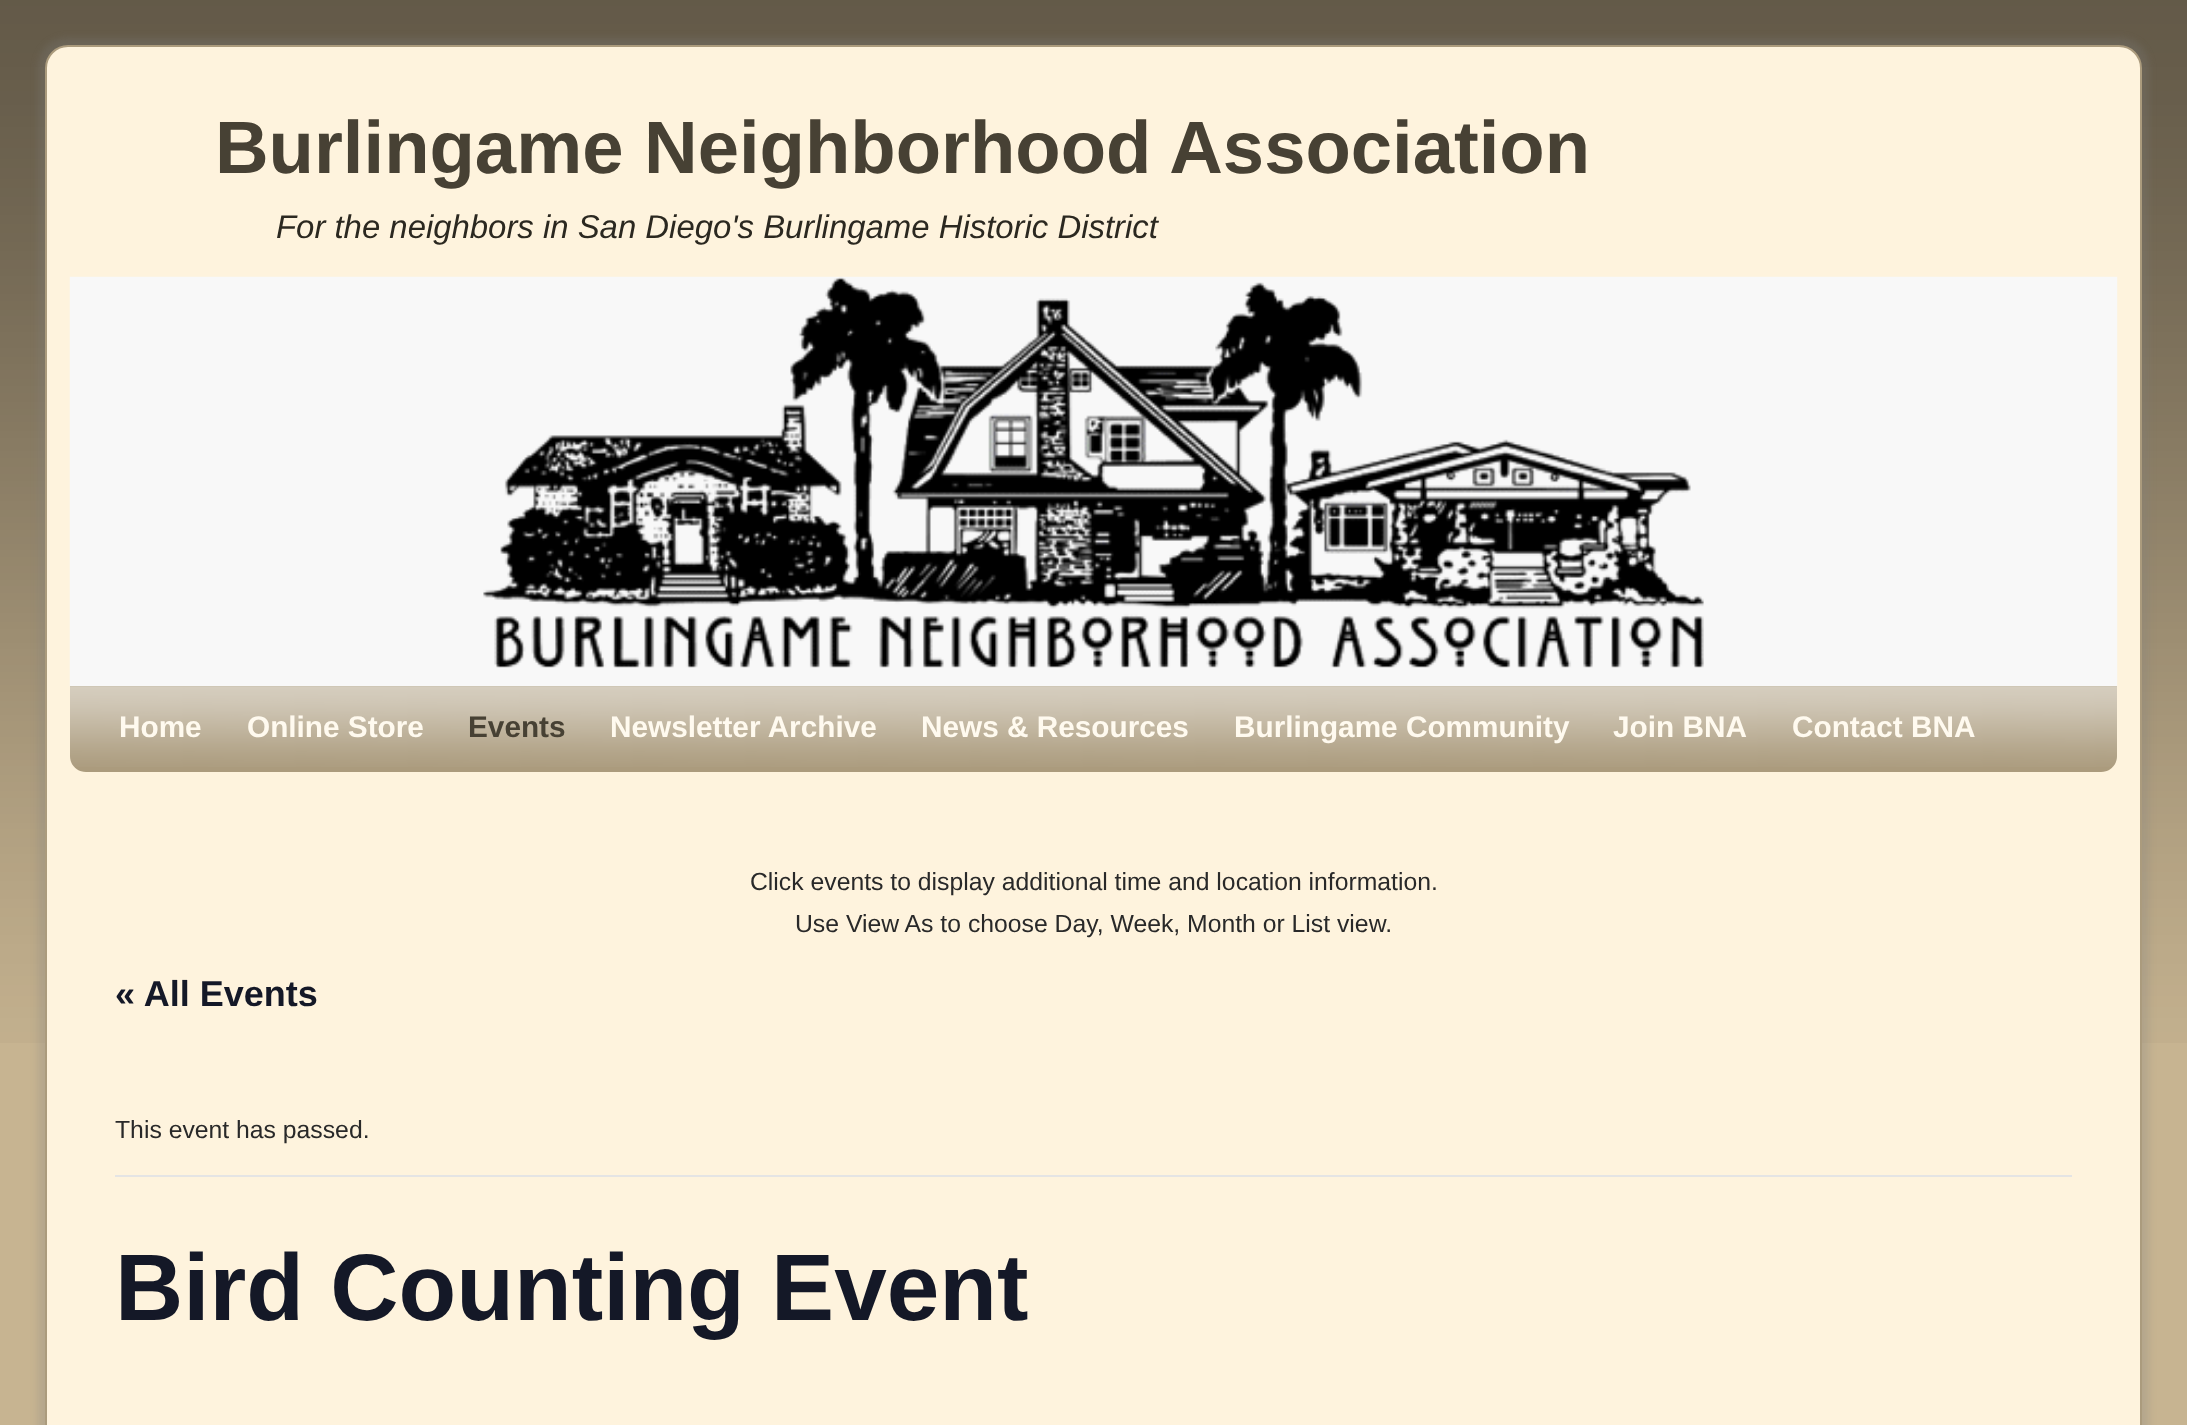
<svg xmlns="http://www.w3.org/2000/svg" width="2187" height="1425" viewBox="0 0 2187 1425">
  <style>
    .t1 { font: bold 74.25px Liberation Sans; fill: #474134; }
    .t2 { font: italic 32.9px Liberation Sans; fill: #2b2820; }
    .t3 { font: bold 29.75px Liberation Sans; fill: #fffaef; }
    .t4 { font: bold 29.75px Liberation Sans; fill: #474134; }
    .t5 { font: 24.75px Liberation Sans; fill: #292929; }
    .t6 { font: bold 36px Liberation Sans; fill: #141827; }
    .t7 { font: bold 94.5px Liberation Sans; fill: #141827; }
  </style>
  <rect width="100%" height="100%" fill="#c7b491"/>
  <image x="0" y="0" width="2187" height="1043" href="images/1.png"/>
  <rect x="38" y="38" width="2111" height="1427" rx="29" fill="#7f7f7f40" filter="blur(3.5px)"/>
  <rect x="46" y="46" width="2095" height="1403" rx="22" fill="#fef3dd" stroke="#ab9b7d" stroke-width="2"/>
  <text x="215" y="173" class="t1">Burlingame Neighborhood Association</text>
  <text x="276" y="238" class="t2">For the neighbors in San Diego's Burlingame Historic District</text>
  <path d="M70 686H2117V756C2117 765 2110 772 2101 772H86C77 772 70 765 70 756Z" fill="#ab9b7d"/>
  <image x="70" y="686" width="2047" height="81" href="images/3.png"/>
  <image x="69" y="276" width="2049" height="411" href="images/2.png"/>
  <text x="119" y="737" class="t3">Home</text>
  <text x="247" y="737" class="t3">Online Store</text>
  <text x="468" y="737" class="t4">Events</text>
  <text x="610" y="737" class="t3">Newsletter Archive</text>
  <text x="921" y="737" class="t3">News &amp; Resources</text>
  <text x="1234" y="737" class="t3">Burlingame Community</text>
  <text x="1613" y="737" class="t3">Join BNA</text>
  <text x="1792" y="737" class="t3">Contact BNA</text>
  <text x="750" y="890" class="t5">Click events to display additional time and location information.</text>
  <text x="795" y="932" class="t5">Use View As to choose Day, Week, Month or List view.</text>
  <text x="115" y="1006" class="t6">« All Events</text>
  <rect x="115" y="1175" width="1957" height="2" fill="#e4e4e4"/>
  <text x="115" y="1138" class="t5">This event has passed.</text>
  <text x="115" y="1320" class="t7">Bird Counting Event</text>
</svg>
